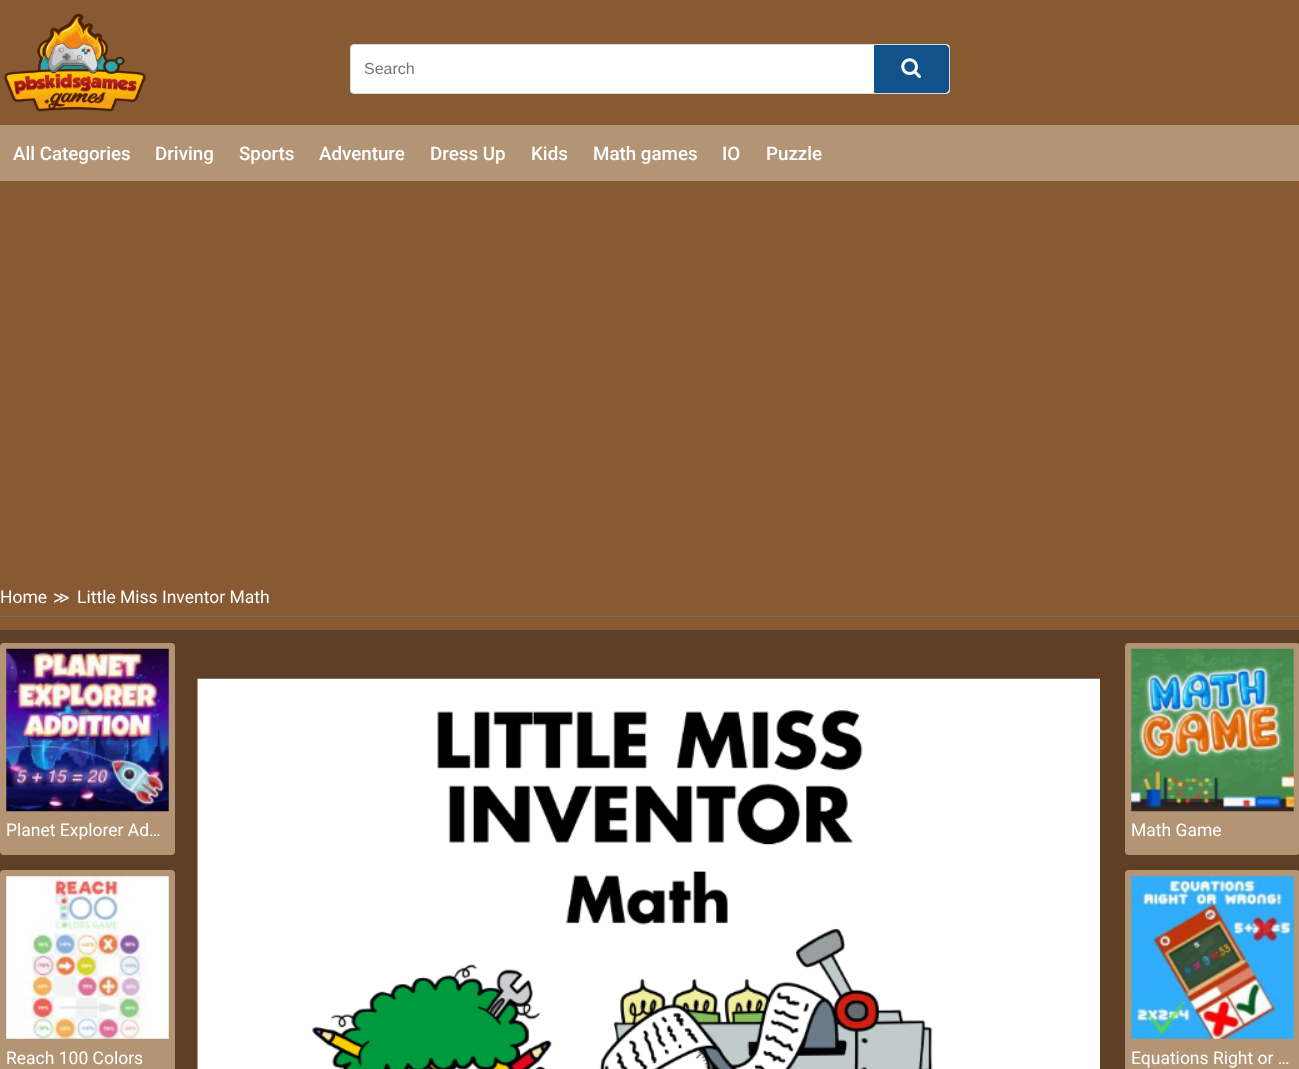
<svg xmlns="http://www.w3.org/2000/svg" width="1299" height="1069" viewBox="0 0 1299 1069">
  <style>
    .t1 { font: 16px Liberation Sans; fill: #757575; }
    .t2 { font: 500 18.75px Roboto; fill: #fff; }
    .t3 { font: 17.5px Roboto; fill: #fff; }
    .t4 { font: 16px DejaVu Sans; fill: #fff; }
  </style>
  <rect width="100%" height="100%" fill="#875a34"/>
  <image x="4" y="13" width="142" height="99" href="images/1.png"/>
  <rect x="350.5" y="44.5" width="599" height="49" rx="3.5" fill="#fff" stroke="#dbdbdb"/>
  <text x="364" y="74" class="t1">Search</text>
  <path d="M874.5 45.5H945C947 45.5 948.5 47 948.5 49V89C948.5 91 947 92.5 945 92.5H874.5Z" fill="#105289" stroke="#105289"/>
  <image x="901" y="58" width="20" height="20" href="images/2.png"/>
  <rect x="0" y="125" width="1299" height="56" fill="#b39576"/>
  <text x="13" y="160" class="t2">All Categories</text>
  <text x="155" y="160" class="t2">Driving</text>
  <text x="239" y="160" class="t2">Sports</text>
  <text x="319" y="160" class="t2">Adventure</text>
  <text x="430" y="160" class="t2">Dress Up</text>
  <text x="531" y="160" class="t2">Kids</text>
  <text x="593" y="160" class="t2">Math games</text>
  <text x="722" y="160" class="t2">IO</text>
  <text x="766" y="160" class="t2">Puzzle</text>
  <rect x="0" y="616" width="1299" height="1" fill="#727272"/>
  <text x="0" y="603" class="t3">Home</text>
  <text x="53" y="603" class="t4">≫</text>
  <text x="77" y="603" class="t3">Little Miss Inventor Math</text>
  <rect x="0" y="630" width="1299" height="439" fill="#5f3f26"/>
  <rect x="0" y="643" width="175" height="212" rx="4" fill="#b39576"/>
  <image x="6" y="648" width="163" height="164" href="images/3.png"/>
  <text x="6" y="836" class="t3">Planet Explorer Ad…</text>
  <rect x="0" y="870" width="175" height="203" rx="4" fill="#b39576"/>
  <image x="6" y="876" width="163" height="163" href="images/4.png"/>
  <text x="6" y="1064" class="t3">Reach 100 Colors</text>
  <image x="197" y="678" width="903" height="391" href="images/5.png"/>
  <rect x="1125" y="643" width="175" height="212" rx="4" fill="#b39576"/>
  <image x="1131" y="648" width="163" height="164" href="images/6.png"/>
  <text x="1131" y="836" class="t3">Math Game</text>
  <rect x="1125" y="870" width="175" height="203" rx="4" fill="#b39576"/>
  <image x="1131" y="876" width="163" height="163" href="images/7.png"/>
  <text x="1131" y="1064" class="t3">Equations Right or …</text>
</svg>
